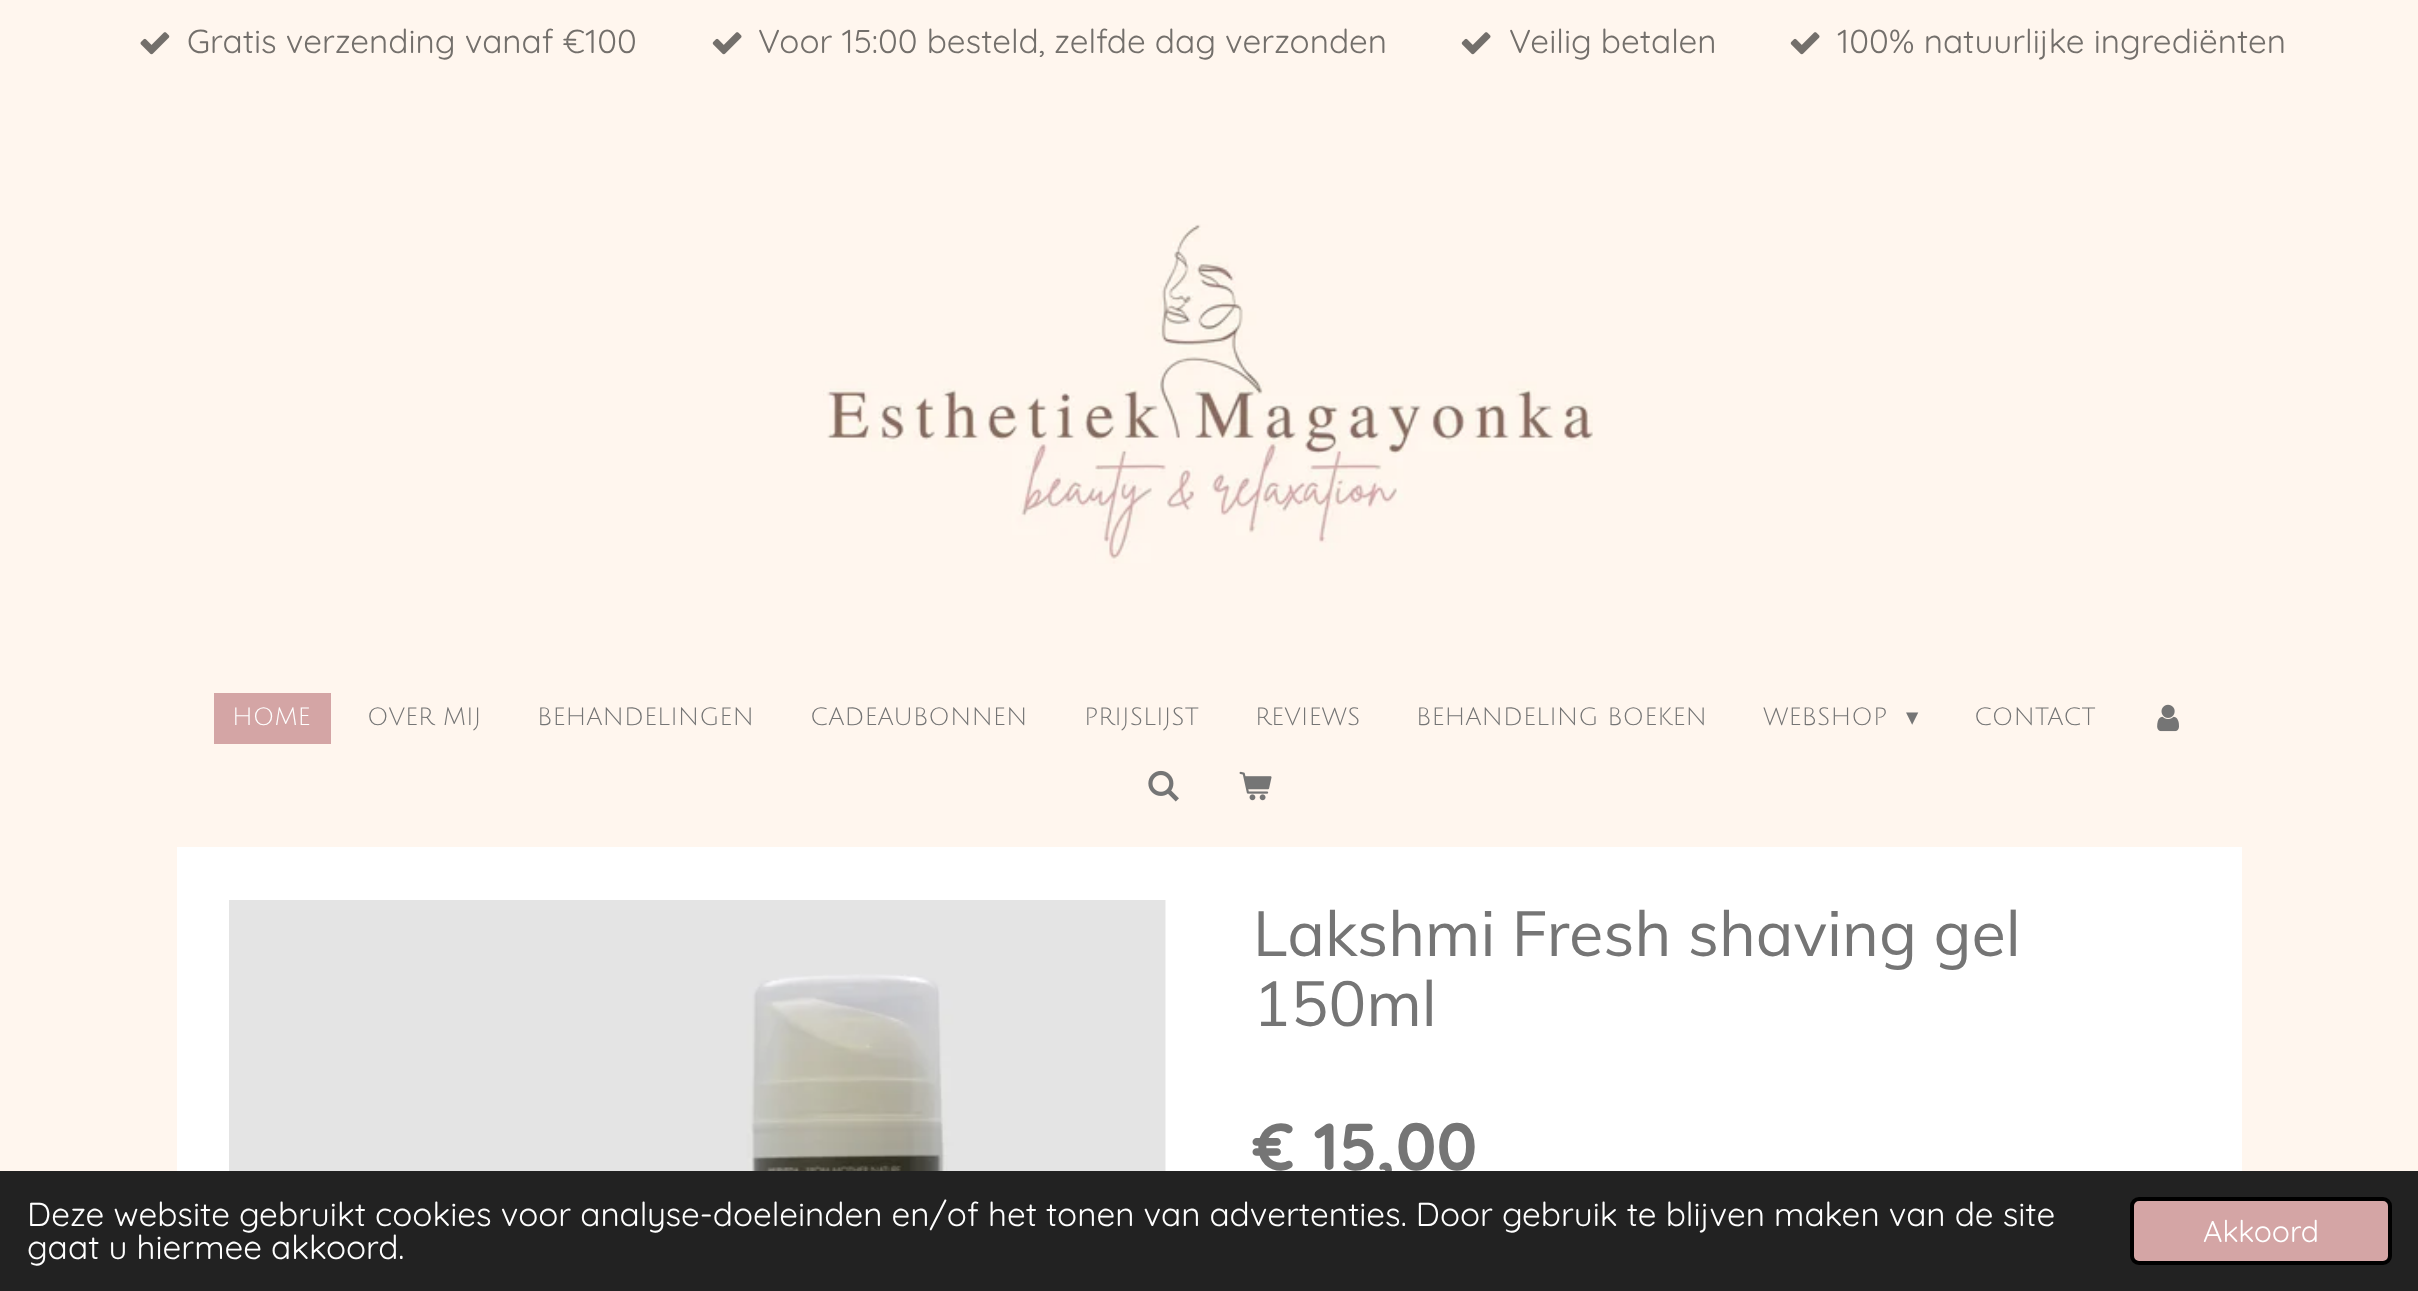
<svg xmlns="http://www.w3.org/2000/svg" width="2418" height="1291" viewBox="0 0 2418 1291">
  <style>
    .t1 { font: 300 33.25px Quicksand; fill: #736f6b; }
    .t2 { font: 24.5px Julius Sans One; fill: #fff; }
    .t3 { font: 24.5px Julius Sans One; fill: #757575; }
    .t4 { font: 24.5px DejaVu Sans; fill: #757575; }
    .t5 { font: 63px Muli; fill: #757575; }
    .t6 { font: 300 66.5px 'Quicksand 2'; fill: #757575; }
    .t7 { font: 300 33.25px Quicksand; fill: #fff; }
    .t8 { font: 300 30px Quicksand; fill: #fff; }
  </style>
  <rect width="100%" height="100%" fill="#fff6ee"/>
  <image x="140" y="32" width="30" height="23" href="images/1.png"/>
  <text x="187" y="53" class="t1">Gratis verzending vanaf €100</text>
  <image x="712" y="32" width="30" height="23" href="images/2.png"/>
  <text x="758" y="53" class="t1">Voor 15:00 besteld, zelfde dag verzonden</text>
  <image x="1461" y="32" width="30" height="23" href="images/2.png"/>
  <text x="1509" y="53" class="t1">Veilig betalen</text>
  <image x="1790" y="32" width="30" height="23" href="images/2.png"/>
  <text x="1837" y="53" class="t1">100% natuurlijke ingrediënten</text>
  <image x="823" y="224" width="770" height="340" href="images/3.png"/>
  <rect x="214" y="693" width="117" height="51" fill="#d4a5a5"/>
  <text x="232" y="725" class="t2">HOME</text>
  <text x="367" y="725" class="t3">OVER MIJ</text>
  <text x="537" y="725" class="t3">BEHANDELINGEN</text>
  <text x="810" y="725" class="t3">CADEAUBONNEN</text>
  <text x="1084" y="725" class="t3">PRIJSLIJST</text>
  <text x="1255" y="725" class="t3">REVIEWS</text>
  <text x="1416" y="725" class="t3">BEHANDELING BOEKEN</text>
  <text x="1763" y="725" class="t3">WEBSHOP</text>
  <text x="1906" y="725" class="t4">▾</text>
  <text x="1974" y="725" class="t3">CONTACT</text>
  <image x="2157" y="704" width="22" height="28" href="images/4.png"/>
  <image x="1148" y="770" width="31" height="32" href="images/5.png"/>
  <image x="1239" y="771" width="33" height="30" href="images/6.png"/>
  <rect x="177" y="847" width="2065" height="324" fill="#fff"/>
  <image x="229" y="900" width="937" height="271" href="images/7.png"/>
  <text x="1253" y="956" class="t5">Lakshmi Fresh shaving gel</text>
  <text x="1253" y="1026" class="t5">150ml</text>
  <text x="1253" y="1170" class="t6">€ 15,00</text>
  <rect x="0" y="1171" width="2418" height="120" fill="#222"/>
  <text x="27" y="1226" class="t7">Deze website gebruikt cookies voor analyse-doeleinden en/of het tonen van advertenties. Door gebruik te blijven maken van de site</text>
  <text x="27" y="1259" class="t7">gaat u hiermee akkoord.</text>
  <rect x="2132" y="1199" width="258" height="64" rx="7" fill="#d4a5a5" stroke="#000" stroke-width="4"/>
  <text x="2203" y="1242" class="t8">Akkoord</text>
</svg>
